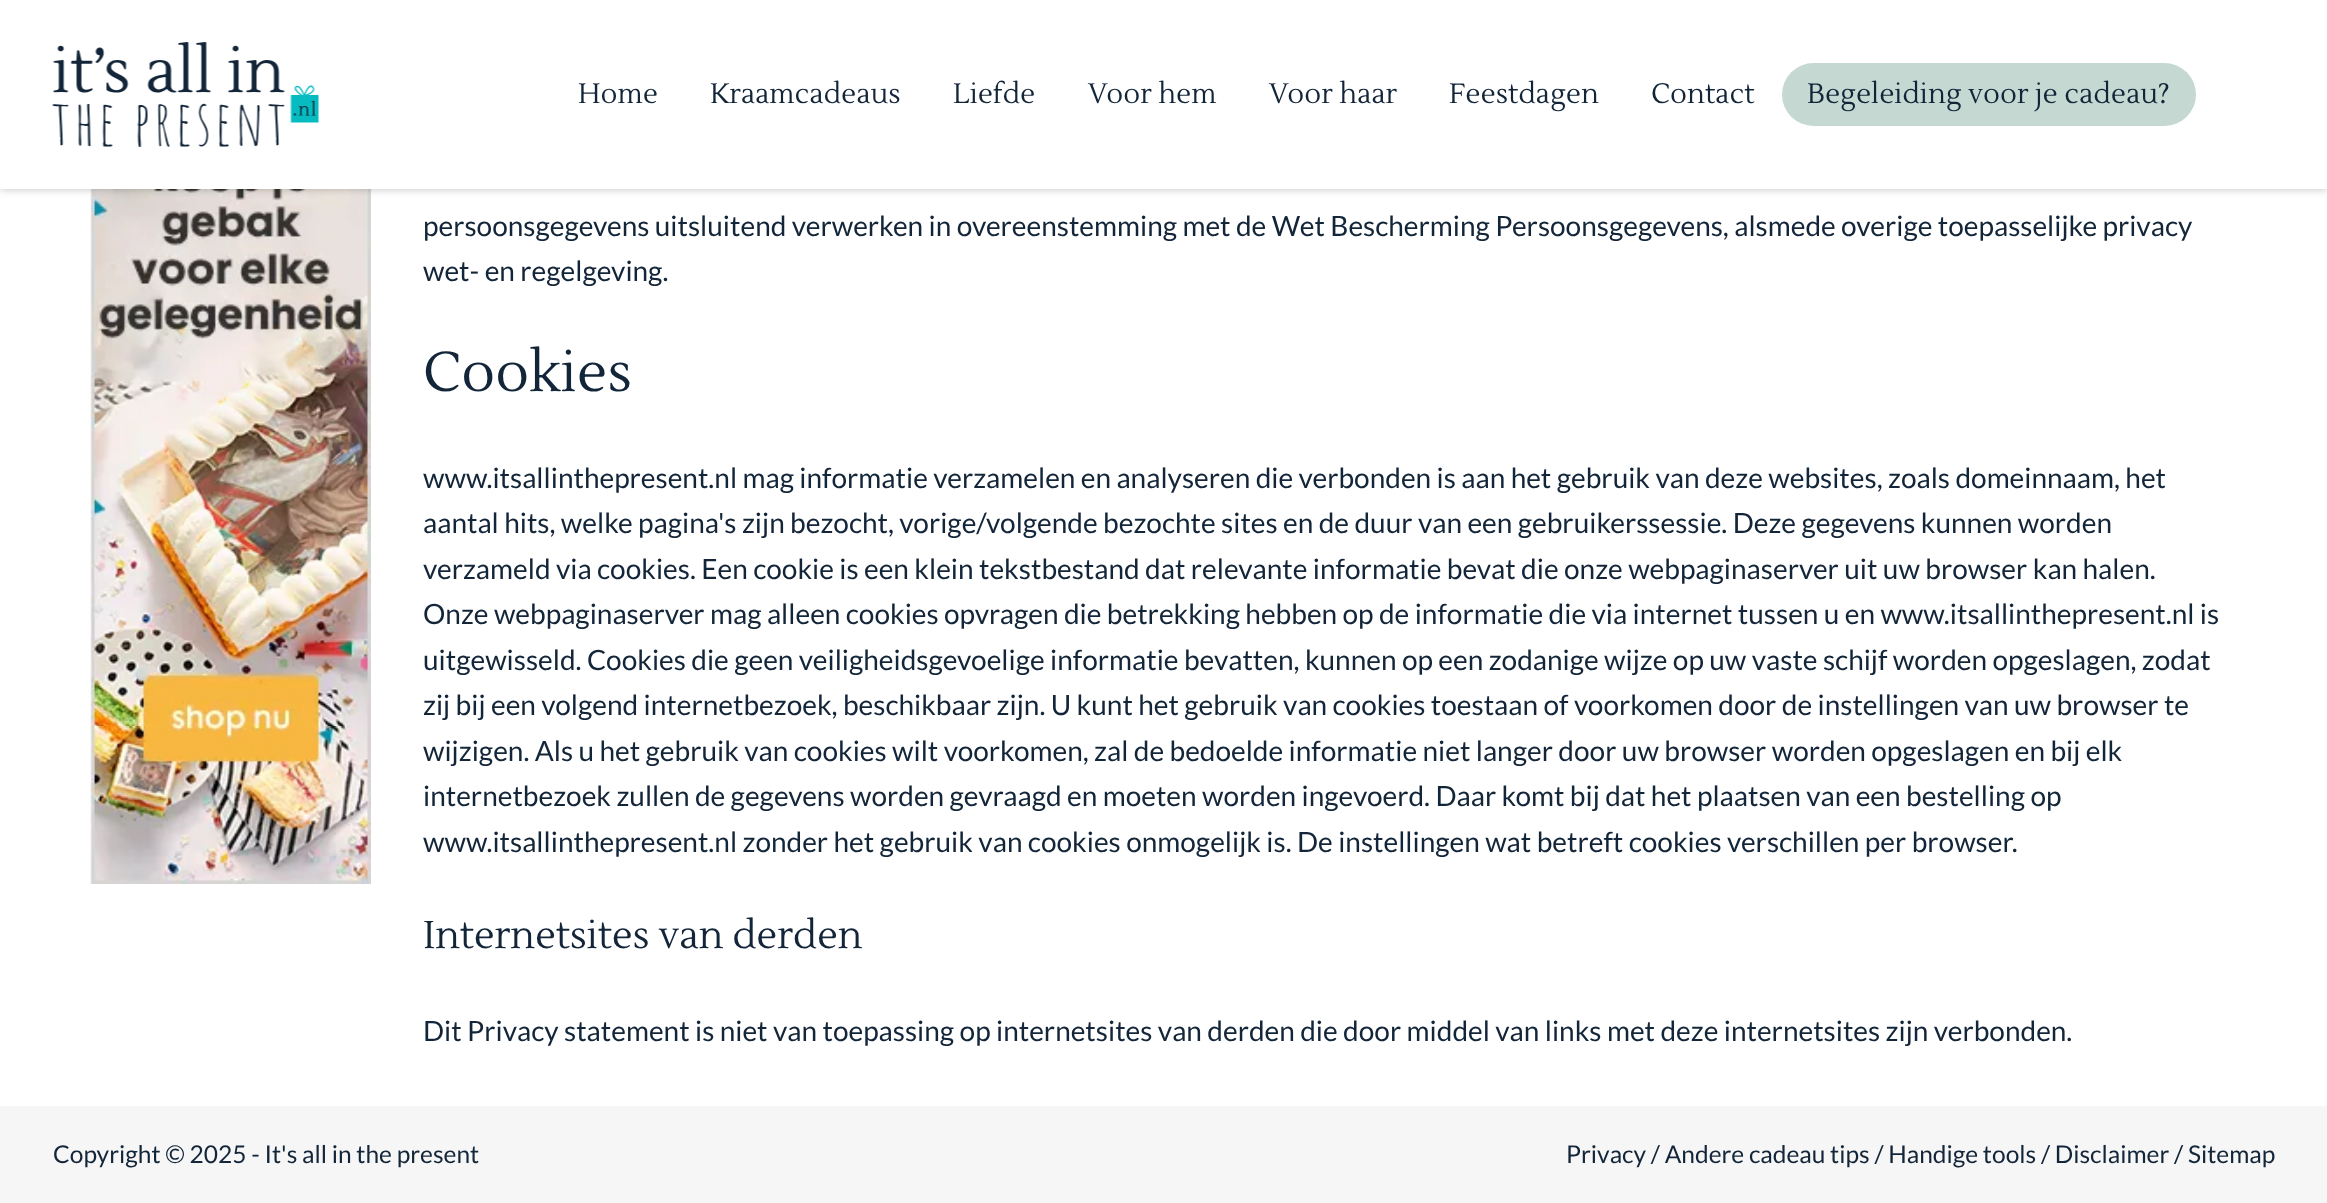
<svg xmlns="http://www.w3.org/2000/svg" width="2327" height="1203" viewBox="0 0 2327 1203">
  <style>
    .t1 { font: 28px Lustria; fill: #132539; }
    .t2 { font: 28px Lato; fill: #132539; }
    .t3 { font: 56px Lustria; fill: #132539; }
    .t4 { font: 38.5px Lustria; fill: #132539; }
    .t5 { font: 24.5px Lato; fill: #132539; }
  </style>
  <rect width="100%" height="100%" fill="#fff"/>
  <image x="90" y="189" width="281" height="695" href="images/2.png"/>
  <rect x="0" y="0" width="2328" height="189" fill="#00000040" filter="blur(4.5px)"/>
  <rect x="0" y="0" width="2327" height="189" fill="#fff"/>
  <image x="52" y="42" width="267" height="105" href="images/1.png"/>
  <text x="578" y="103" class="t1">Home</text>
  <text x="710" y="103" class="t1">Kraamcadeaus</text>
  <text x="953" y="103" class="t1">Liefde</text>
  <text x="1088" y="103" class="t1">Voor hem</text>
  <text x="1269" y="103" class="t1">Voor haar</text>
  <text x="1449" y="103" class="t1">Feestdagen</text>
  <text x="1651" y="103" class="t1">Contact</text>
  <rect x="1782" y="63" width="414" height="63" rx="31.5" fill="#c5d8d2"/>
  <text x="1807" y="103" class="t1">Begeleiding voor je cadeau?</text>
  <text x="423" y="236" class="t2">persoonsgegevens uitsluitend verwerken in overeenstemming met de Wet Bescherming Persoonsgegevens, alsmede overige toepasselijke privacy</text>
  <text x="423" y="281" class="t2">wet- en regelgeving.</text>
  <text x="423" y="391" class="t3">Cookies</text>
  <text x="423" y="488" class="t2">www.itsallinthepresent.nl mag informatie verzamelen en analyseren die verbonden is aan het gebruik van deze websites, zoals domeinnaam, het</text>
  <text x="423" y="533" class="t2">aantal hits, welke pagina's zijn bezocht, vorige/volgende bezochte sites en de duur van een gebruikerssessie. Deze gegevens kunnen worden</text>
  <text x="423" y="579" class="t2">verzameld via cookies. Een cookie is een klein tekstbestand dat relevante informatie bevat die onze webpaginaserver uit uw browser kan halen.</text>
  <text x="423" y="624" class="t2">Onze webpaginaserver mag alleen cookies opvragen die betrekking hebben op de informatie die via internet tussen u en www.itsallinthepresent.nl is</text>
  <text x="423" y="670" class="t2">uitgewisseld. Cookies die geen veiligheidsgevoelige informatie bevatten, kunnen op een zodanige wijze op uw vaste schijf worden opgeslagen, zodat</text>
  <text x="423" y="715" class="t2">zij bij een volgend internetbezoek, beschikbaar zijn. U kunt het gebruik van cookies toestaan of voorkomen door de instellingen van uw browser te</text>
  <text x="423" y="761" class="t2">wijzigen. Als u het gebruik van cookies wilt voorkomen, zal de bedoelde informatie niet langer door uw browser worden opgeslagen en bij elk</text>
  <text x="423" y="806" class="t2">internetbezoek zullen de gegevens worden gevraagd en moeten worden ingevoerd. Daar komt bij dat het plaatsen van een bestelling op</text>
  <text x="423" y="852" class="t2">www.itsallinthepresent.nl zonder het gebruik van cookies onmogelijk is. De instellingen wat betreft cookies verschillen per browser.</text>
  <text x="423" y="948" class="t4">Internetsites van derden</text>
  <text x="423" y="1041" class="t2">Dit Privacy statement is niet van toepassing op internetsites van derden die door middel van links met deze internetsites zijn verbonden.</text>
  <rect x="0" y="1106" width="2327" height="97" fill="#f6f6f6"/>
  <text x="53" y="1163" class="t5">Copyright © 2025 - It's all in the present</text>
  <text x="1566" y="1163" class="t5">Privacy / Andere cadeau tips / Handige tools / Disclaimer / Sitemap</text>
</svg>
